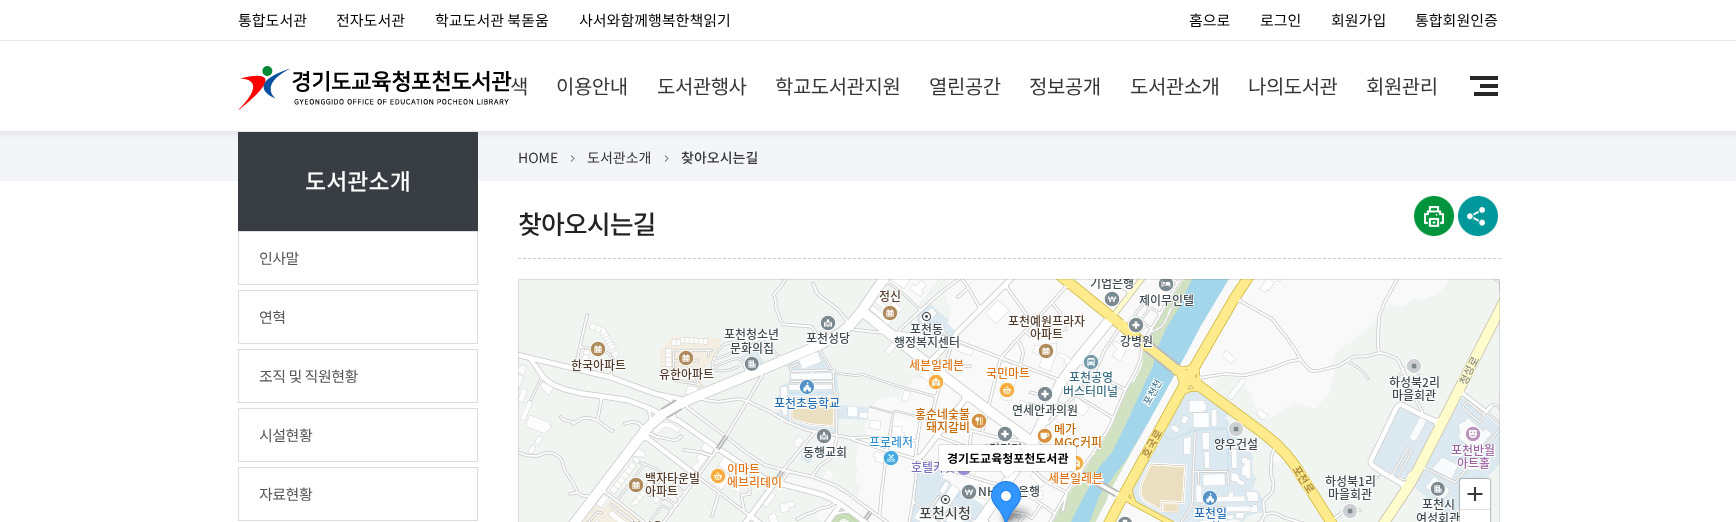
<svg xmlns="http://www.w3.org/2000/svg" width="1736" height="522" viewBox="0 0 1736 522">
  <style>
    .t1 { font: 15px Noto Sans KR; fill: #000; }
    .t2 { font: 20px Noto Sans KR; letter-spacing: -0.5px; fill: #363636; }
    .t3 { font: 14px Noto Sans KR; fill: #363636; }
    .t4 { font: 500 14px Noto Sans KR; fill: #363636; }
    .t5 { font: 500 23px Noto Sans KR; fill: #fff; }
    .t6 { font: 15px Noto Sans KR; letter-spacing: -0.5px; fill: #555; }
    .t7 { font: 500 26px Noto Sans KR; letter-spacing: -1px; fill: #222; }
    .t8 { font: bold 12px Noto Sans KR; fill: #000; }
  </style>
  <rect width="100%" height="100%" fill="#fff"/>
  <text x="238" y="26" class="t1">통합도서관</text>
  <text x="336" y="26" class="t1">전자도서관</text>
  <text x="435" y="26" class="t1">학교도서관 북돋움</text>
  <text x="579" y="26" class="t1">사서와함께행복한책읽기</text>
  <text x="1189" y="26" class="t1">홈으로</text>
  <text x="1260" y="26" class="t1">로그인</text>
  <text x="1331" y="26" class="t1">회원가입</text>
  <text x="1415" y="26" class="t1">통합회원인증</text>
  <rect x="0" y="40" width="1736" height="1" fill="#e6e6e6"/>
  <rect x="0" y="131" width="1736" height="1" fill="#e6e6e6"/>
  <text x="510" y="94" class="t2">색</text>
  <image x="238" y="66" width="274" height="44" href="images/1.png"/>
  <text x="556" y="94" class="t2">이용안내</text>
  <text x="657" y="94" class="t2">도서관행사</text>
  <text x="775" y="94" class="t2">학교도서관지원</text>
  <text x="929" y="94" class="t2">열린공간</text>
  <text x="1029" y="94" class="t2">정보공개</text>
  <text x="1130" y="94" class="t2">도서관소개</text>
  <text x="1248" y="94" class="t2">나의도서관</text>
  <text x="1366" y="94" class="t2">회원관리</text>
  <image x="1470" y="76" width="28" height="20" href="images/2.png"/>
  <image x="0" y="132" width="1736" height="49" href="images/3.png"/>
  <text x="518" y="163" class="t3">HOME</text>
  <image x="571" y="155" width="4" height="7" href="images/4.png"/>
  <text x="587" y="163" class="t3">도서관소개</text>
  <image x="665" y="155" width="4" height="7" href="images/4.png"/>
  <text x="681" y="163" class="t4">찾아오시는길</text>
  <rect x="238" y="132" width="240" height="99" fill="#383d43"/>
  <text x="305" y="190" class="t5">도서관소개</text>
  <rect x="238.5" y="231.5" width="239" height="53" fill="none" stroke="#ddd"/>
  <text x="259" y="264" class="t6">인사말</text>
  <rect x="238.5" y="290.5" width="239" height="53" fill="none" stroke="#ddd"/>
  <text x="259" y="323" class="t6">연혁</text>
  <rect x="238.5" y="349.5" width="239" height="53" fill="none" stroke="#ddd"/>
  <text x="259" y="382" class="t6">조직 및 직원현황</text>
  <rect x="238.5" y="408.5" width="239" height="53" fill="none" stroke="#ddd"/>
  <text x="259" y="441" class="t6">시설현황</text>
  <rect x="238.5" y="467.5" width="239" height="53" fill="none" stroke="#ddd"/>
  <text x="259" y="500" class="t6">자료현황</text>
  <path d="M518 258.5H1501" fill="none" stroke="#ccc" stroke-dasharray="3 2"/>
  <text x="518" y="234" class="t7">찾아오시는길</text>
  <image x="1414" y="196" width="40" height="40" href="images/5.png"/>
  <image x="1458" y="196" width="40" height="40" href="images/6.png"/>
  <image x="518" y="279" width="9" height="226" href="images/7.png"/>
  <image x="527" y="279" width="256" height="226" href="images/8.png"/>
  <image x="783" y="279" width="256" height="226" href="images/9.png"/>
  <image x="1039" y="279" width="256" height="226" href="images/10.png"/>
  <image x="1295" y="279" width="205" height="226" href="images/11.png"/>
  <rect x="519" y="279" width="981" height="1" fill="#0000001a"/>
  <rect x="518" y="280" width="1" height="1" fill="#d9ddda"/>
  <rect x="518" y="505" width="9" height="17" fill="#f1f5f2"/>
  <rect x="518" y="281" width="1" height="241" fill="#0000001a"/>
  <image x="527" y="505" width="256" height="17" href="images/12.png"/>
  <image x="783" y="505" width="256" height="17" href="images/13.png"/>
  <image x="1039" y="505" width="256" height="17" href="images/14.png"/>
  <image x="1295" y="505" width="205" height="17" href="images/15.png"/>
  <rect x="938.5" y="444.5" width="138" height="27" rx="2.5" fill="none" stroke="#0000001a"/>
  <rect x="939" y="445" width="137" height="26" rx="3" fill="#fff"/>
  <text x="947" y="463" class="t8">경기도교육청포천도서관</text>
  <image x="1000" y="471" width="15" height="8" href="images/16.png"/>
  <image x="991" y="481" width="42" height="41" href="images/17.png"/>
  <rect x="1499" y="281" width="1" height="241" fill="#0000001a"/>
  <image x="1458" y="477" width="34" height="45" href="images/18.png"/>
  <image x="1467" y="487" width="16" height="14" href="images/19.png"/>
</svg>
